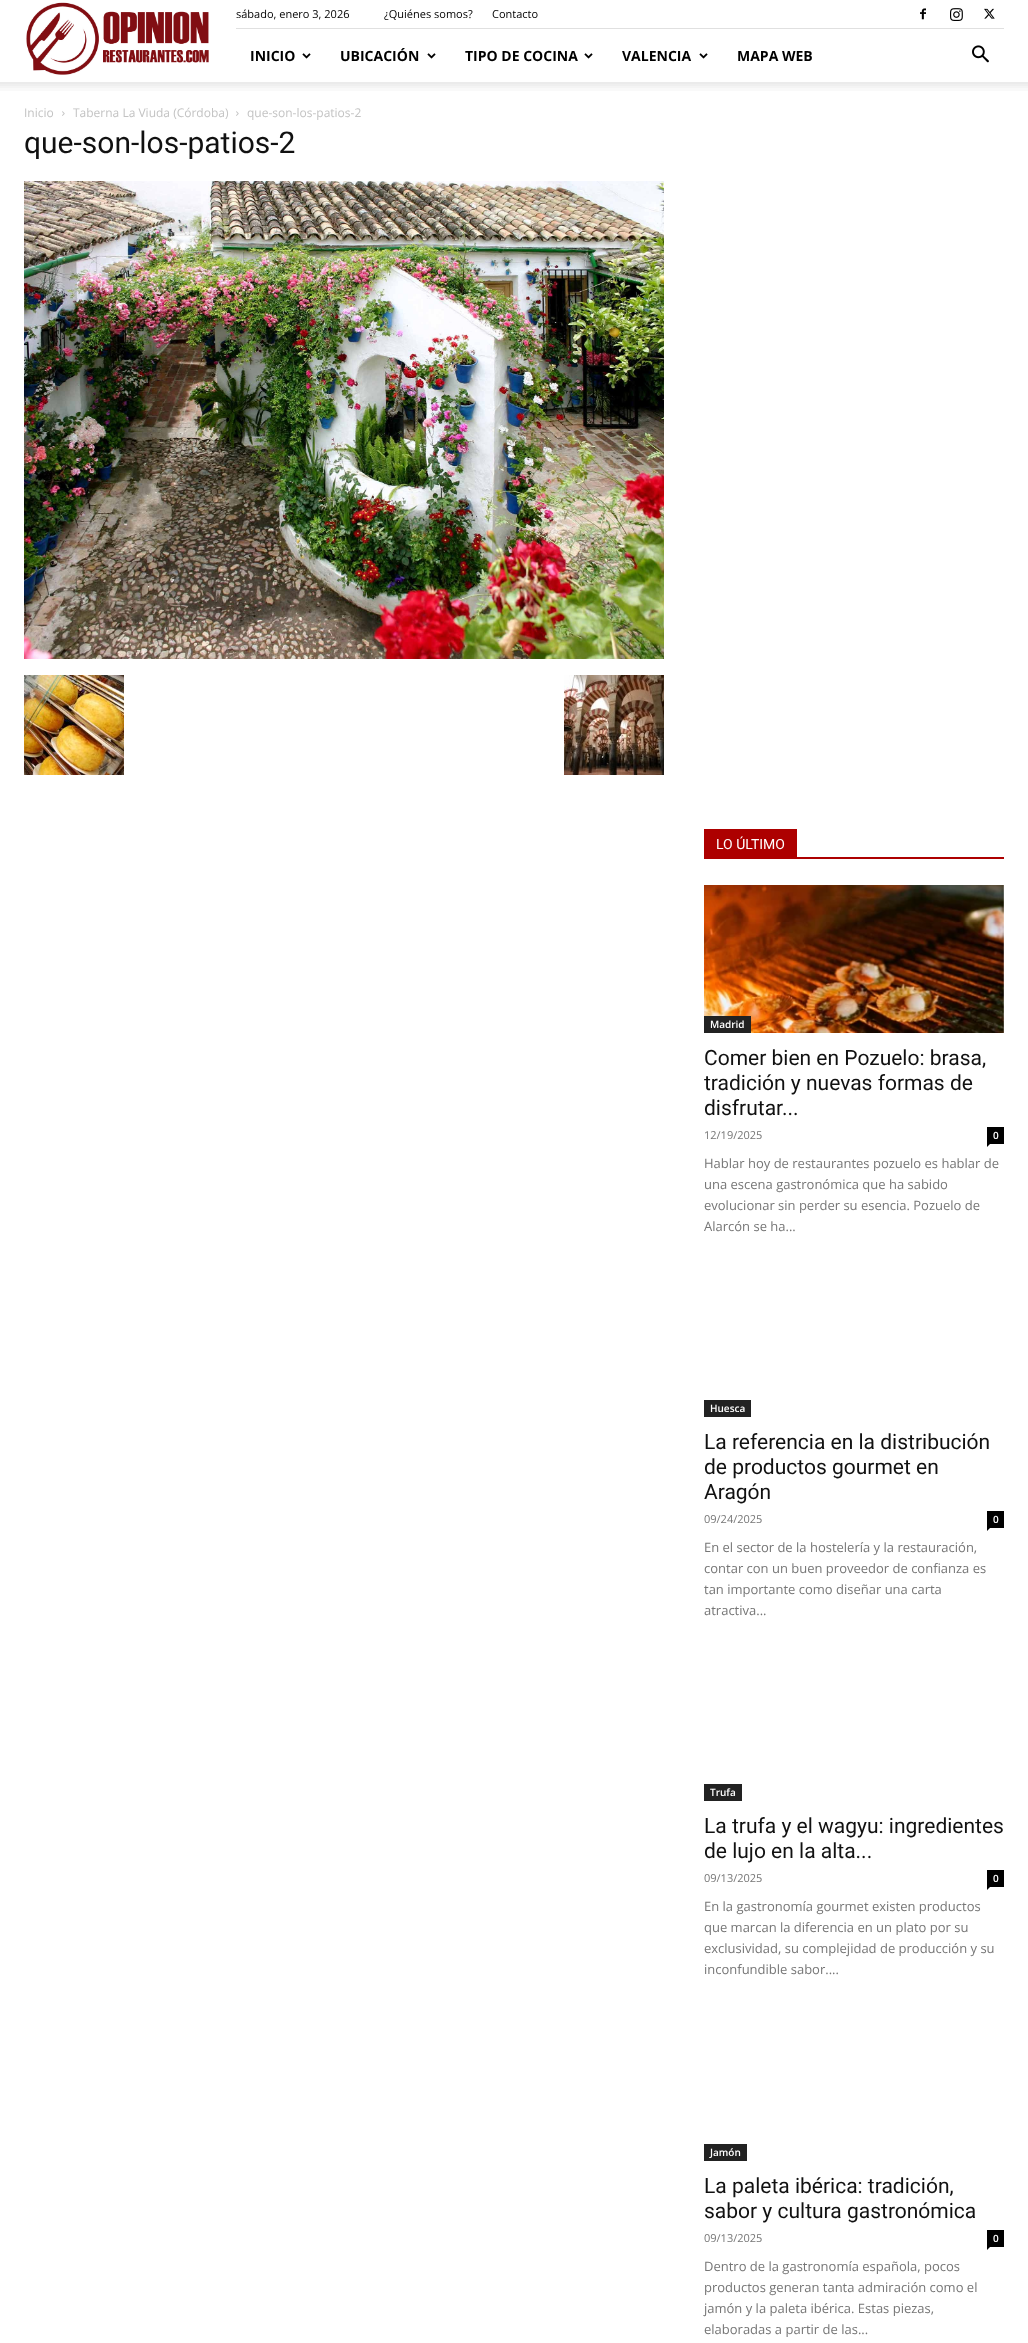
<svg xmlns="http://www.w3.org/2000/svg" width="1028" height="2343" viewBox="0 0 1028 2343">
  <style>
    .t1 { font: 11px Open Sans; fill: #000; }
    .t2 { font: bold 14px Open Sans; fill: #000; }
    .t3 { font: 12px Open Sans; fill: #c3c3c3; }
    .t4 { font: 30px Roboto; fill: #111; }
    .t5 { font: 14px Roboto; fill: #fff; }
    .t6 { font: 600 10px Open Sans; fill: #fff; }
    .t7 { font: 21px Roboto; fill: #111; }
    .t8 { font: 11px Open Sans; fill: #767676; }
    .t9 { font: 13px Open Sans; fill: #767676; }
  </style>
  <rect width="100%" height="100%" fill="#fff"/>
  <image x="26" y="2" width="183" height="73" href="images/1.png"/>
  <rect x="236" y="28" width="768" height="1" fill="#e0e0e0"/>
  <text x="236" y="18" class="t1">sábado, enero 3, 2026</text>
  <text x="384" y="18" class="t1">¿Quiénes somos?</text>
  <text x="492" y="18" class="t1">Contacto</text>
  <image x="920" y="8" width="6" height="12" href="images/2.png"/>
  <image x="950" y="8" width="13" height="13" href="images/3.png"/>
  <image x="984" y="8" width="11" height="11" href="images/4.png"/>
  <text x="250" y="61" class="t2">INICIO</text>
  <image x="302" y="53" width="9" height="6" href="images/5.png"/>
  <text x="340" y="61" class="t2">UBICACIÓN</text>
  <image x="427" y="53" width="9" height="6" href="images/5.png"/>
  <text x="465" y="61" class="t2">TIPO DE COCINA</text>
  <image x="584" y="53" width="9" height="6" href="images/5.png"/>
  <text x="622" y="61" class="t2">VALENCIA</text>
  <image x="699" y="53" width="9" height="6" href="images/5.png"/>
  <text x="737" y="61" class="t2">MAPA WEB</text>
  <image x="972" y="45" width="17" height="18" href="images/6.png"/>
  <image x="0" y="82" width="1028" height="9" href="images/7.png"/>
  <text x="24" y="117" class="t3">Inicio</text>
  <image x="62" y="111" width="3" height="5" href="images/8.png"/>
  <text x="73" y="117" class="t3">Taberna La Viuda (Córdoba)</text>
  <image x="236" y="111" width="3" height="5" href="images/8.png"/>
  <text x="247" y="117" class="t3">que-son-los-patios-2</text>
  <text x="24" y="153" class="t4">que-son-los-patios-2</text>
  <image x="24" y="181" width="640" height="478" href="images/9.png"/>
  <image x="24" y="675" width="100" height="100" href="images/10.png"/>
  <image x="564" y="675" width="100" height="100" href="images/11.png"/>
  <rect x="704" y="857" width="300" height="2" fill="#ad0000"/>
  <rect x="704" y="829" width="93" height="28" fill="#ad0000"/>
  <text x="716" y="849" class="t5">LO ÚLTIMO</text>
  <image x="704" y="885" width="300" height="148" href="images/12.png"/>
  <rect x="704" y="1016" width="47" height="17" fill="#222"/>
  <text x="710" y="1028" class="t6">Madrid</text>
  <text x="704" y="1065" class="t7">Comer bien en Pozuelo: brasa,</text>
  <text x="704" y="1090" class="t7">tradición y nuevas formas de</text>
  <text x="704" y="1115" class="t7">disfrutar...</text>
  <text x="704" y="1139" class="t8">12/19/2025</text>
  <rect x="987" y="1127" width="17" height="17" fill="#000"/>
  <text x="993" y="1139" class="t6">0</text>
  <path d="M987 1144H990L987 1147Z" fill="#000"/>
  <text x="704" y="1168" class="t9">Hablar hoy de restaurantes pozuelo es hablar de</text>
  <text x="704" y="1189" class="t9">una escena gastronómica que ha sabido</text>
  <text x="704" y="1210" class="t9">evolucionar sin perder su esencia. Pozuelo de</text>
  <text x="704" y="1231" class="t9">Alarcón se ha...</text>
  <rect x="704" y="1400" width="47" height="17" fill="#222"/>
  <text x="710" y="1412" class="t6">Huesca</text>
  <text x="704" y="1449" class="t7">La referencia en la distribución</text>
  <text x="704" y="1474" class="t7">de productos gourmet en</text>
  <text x="704" y="1499" class="t7">Aragón</text>
  <text x="704" y="1523" class="t8">09/24/2025</text>
  <rect x="987" y="1511" width="17" height="17" fill="#000"/>
  <text x="993" y="1523" class="t6">0</text>
  <path d="M987 1528H990L987 1531Z" fill="#000"/>
  <text x="704" y="1552" class="t9">En el sector de la hostelería y la restauración,</text>
  <text x="704" y="1573" class="t9">contar con un buen proveedor de confianza es</text>
  <text x="704" y="1594" class="t9">tan importante como diseñar una carta</text>
  <text x="704" y="1615" class="t9">atractiva...</text>
  <rect x="704" y="1784" width="38" height="17" fill="#222"/>
  <text x="710" y="1796" class="t6">Trufa</text>
  <text x="704" y="1833" class="t7">La trufa y el wagyu: ingredientes</text>
  <text x="704" y="1858" class="t7">de lujo en la alta...</text>
  <text x="704" y="1882" class="t8">09/13/2025</text>
  <rect x="987" y="1870" width="17" height="17" fill="#000"/>
  <text x="993" y="1882" class="t6">0</text>
  <path d="M987 1887H990L987 1890Z" fill="#000"/>
  <text x="704" y="1911" class="t9">En la gastronomía gourmet existen productos</text>
  <text x="704" y="1932" class="t9">que marcan la diferencia en un plato por su</text>
  <text x="704" y="1953" class="t9">exclusividad, su complejidad de producción y su</text>
  <text x="704" y="1974" class="t9">inconfundible sabor....</text>
  <rect x="704" y="2144" width="43" height="17" fill="#222"/>
  <text x="710" y="2156" class="t6">Jamón</text>
  <text x="704" y="2193" class="t7">La paleta ibérica: tradición,</text>
  <text x="704" y="2218" class="t7">sabor y cultura gastronómica</text>
  <text x="704" y="2242" class="t8">09/13/2025</text>
  <rect x="987" y="2230" width="17" height="17" fill="#000"/>
  <text x="993" y="2242" class="t6">0</text>
  <path d="M987 2247H990L987 2250Z" fill="#000"/>
  <text x="704" y="2271" class="t9">Dentro de la gastronomía española, pocos</text>
  <text x="704" y="2292" class="t9">productos generan tanta admiración como el</text>
  <text x="704" y="2313" class="t9">jamón y la paleta ibérica. Estas piezas,</text>
  <text x="704" y="2334" class="t9">elaboradas a partir de las...</text>
</svg>
